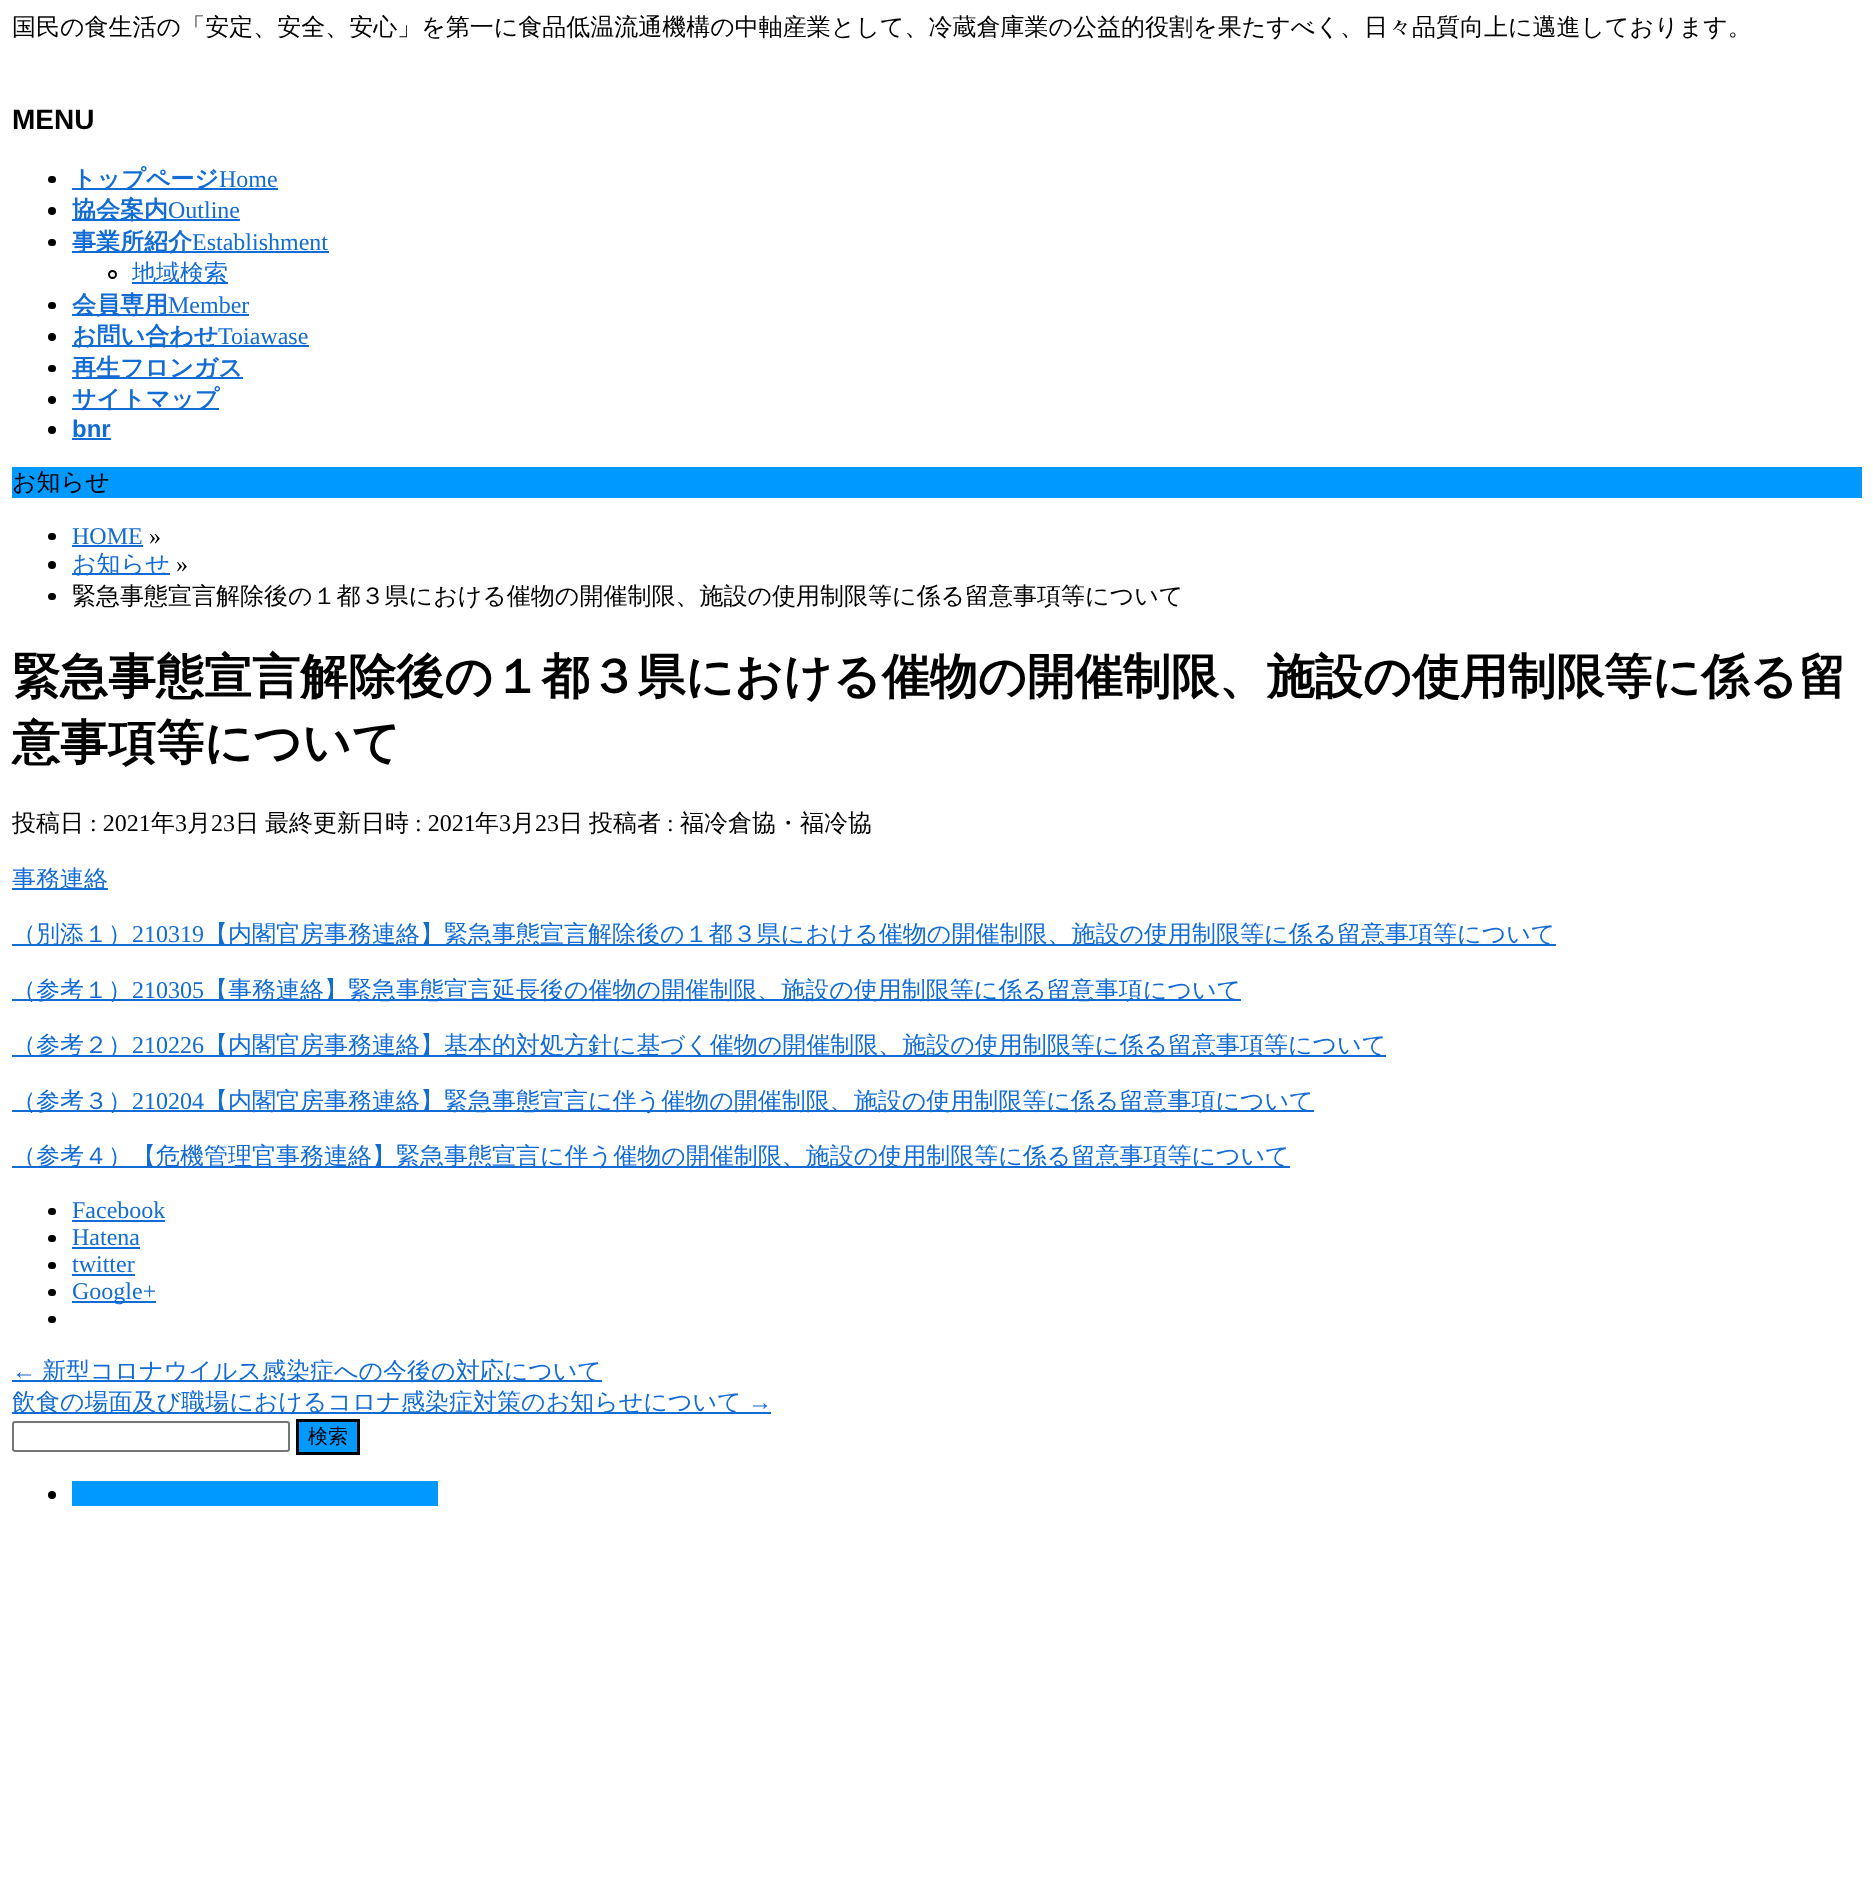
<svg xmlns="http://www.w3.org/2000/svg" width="1873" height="1889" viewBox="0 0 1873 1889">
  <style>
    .t1 { font: 500 24px WenQuanYi Zen Hei; fill: #000; }
    .t2 { font: bold 28px Liberation Sans; fill: #000; }
    .t3 { font: bold 24px WenQuanYi Zen Hei; fill: #136cd3; }
    .t4 { font: 24px Liberation Serif; fill: #136cd3; }
    .t5 { font: 500 24px WenQuanYi Zen Hei; fill: #136cd3; }
    .t6 { font: bold 24px Liberation Sans; fill: #136cd3; }
    .t7 { font: 24px Liberation Serif; fill: #000; }
    .t8 { font: bold 48px WenQuanYi Zen Hei; fill: #000; }
    .t9 { font: 500 20px WenQuanYi Zen Hei; fill: #000; }
  </style>
  <rect width="100%" height="100%" fill="#fff"/>
  <text x="12" y="35" class="t1">国民の食生活の「安定、安全、安心」を第一に食品低温流通機構の中軸産業として、冷蔵倉庫業の公益的役割を果たすべく、日々品質向上に邁進しております。</text>
  <text x="12" y="129" class="t2">MENU</text>
  <rect x="48" y="176" width="8" height="7" rx="3.5" fill="#000"/>
  <rect x="72" y="188" width="206" height="2" fill="#136cd3"/>
  <text x="72" y="187" class="t3">トップページ</text>
  <text x="219" y="187" class="t4">Home</text>
  <circle cx="52" cy="211" r="4" fill="#000"/>
  <rect x="72" y="219" width="168" height="2" fill="#136cd3"/>
  <text x="72" y="218" class="t3">協会案内</text>
  <text x="168" y="218" class="t4">Outline</text>
  <rect x="48" y="239" width="8" height="7" rx="3.5" fill="#000"/>
  <rect x="72" y="251" width="257" height="2" fill="#136cd3"/>
  <text x="72" y="250" class="t3">事業所紹介</text>
  <text x="192" y="250" class="t4">Establishment</text>
  <circle cx="112.5" cy="274.5" r="3.5" fill="none" stroke="#000" stroke-width="2"/>
  <rect x="132" y="282" width="96" height="2" fill="#136cd3"/>
  <text x="132" y="281" class="t5">地域検索</text>
  <rect x="48" y="302" width="8" height="7" rx="3.5" fill="#000"/>
  <rect x="72" y="314" width="177" height="2" fill="#136cd3"/>
  <text x="72" y="313" class="t3">会員専用</text>
  <text x="168" y="313" class="t4">Member</text>
  <circle cx="52" cy="337" r="4" fill="#000"/>
  <rect x="72" y="345" width="237" height="2" fill="#136cd3"/>
  <text x="72" y="344" class="t3">お問い合わせ</text>
  <text x="218" y="344" class="t4">Toiawase</text>
  <rect x="48" y="365" width="8" height="7" rx="3.5" fill="#000"/>
  <rect x="72" y="377" width="171" height="2" fill="#136cd3"/>
  <text x="72" y="376" class="t3">再生フロンガス</text>
  <circle cx="52" cy="400" r="4" fill="#000"/>
  <rect x="72" y="408" width="147" height="2" fill="#136cd3"/>
  <text x="72" y="407" class="t3">サイトマップ</text>
  <circle cx="52" cy="430" r="4" fill="#000"/>
  <text x="72" y="437" class="t6">bnr</text>
  <rect x="72" y="438" width="39" height="2" fill="#136cd3"/>
  <rect x="12" y="467" width="1850" height="31" fill="#09f"/>
  <text x="12" y="490" class="t1">お知らせ</text>
  <rect x="48" y="533" width="8" height="7" rx="3.5" fill="#000"/>
  <text x="72" y="544" class="t4">HOME</text>
  <rect x="72" y="545" width="71" height="2" fill="#136cd3"/>
  <text x="149" y="544" class="t7">»</text>
  <circle cx="52" cy="565" r="4" fill="#000"/>
  <rect x="72" y="573" width="98" height="2" fill="#136cd3"/>
  <text x="72" y="572" class="t5">お知らせ</text>
  <text x="176" y="572" class="t7">»</text>
  <rect x="48" y="593" width="8" height="7" rx="3.5" fill="#000"/>
  <text x="72" y="604" class="t1">緊急事態宣言解除後の１都３県における催物の開催制限、施設の使用制限等に係る留意事項等について</text>
  <text x="12" y="693" class="t8">緊急事態宣言解除後の１都３県における催物の開催制限、施設の使用制限等に係る留</text>
  <text x="12" y="759" class="t8">意事項等について</text>
  <text x="12" y="831" class="t1">投稿日</text>
  <text x="90" y="831" class="t7">: 2021</text>
  <text x="151" y="831" class="t1">年</text>
  <text x="175" y="831" class="t7">3</text>
  <text x="187" y="831" class="t1">月</text>
  <text x="211" y="831" class="t7">23</text>
  <text x="235" y="831" class="t1">日</text>
  <text x="265" y="831" class="t1">最終更新日時</text>
  <text x="415" y="831" class="t7">: 2021</text>
  <text x="475" y="831" class="t1">年</text>
  <text x="499" y="831" class="t7">3</text>
  <text x="511" y="831" class="t1">月</text>
  <text x="535" y="831" class="t7">23</text>
  <text x="559" y="831" class="t1">日</text>
  <text x="589" y="831" class="t1">投稿者</text>
  <text x="667" y="831" class="t7">:</text>
  <text x="680" y="831" class="t1">福冷倉協・福冷協</text>
  <rect x="12" y="888" width="96" height="2" fill="#136cd3"/>
  <text x="12" y="887" class="t5">事務連絡</text>
  <rect x="12" y="944" width="1544" height="2" fill="#136cd3"/>
  <text x="12" y="942" class="t5">（別添１）</text>
  <text x="132" y="942" class="t4">210319</text>
  <text x="204" y="942" class="t5">【内閣官房事務連絡】緊急事態宣言解除後の１都３県における催物の開催制限、施設の使用制限等に係る留意事項等について</text>
  <rect x="12" y="999" width="1229" height="2" fill="#136cd3"/>
  <text x="12" y="998" class="t5">（参考１）</text>
  <text x="132" y="998" class="t4">210305</text>
  <text x="204" y="998" class="t5">【事務連絡】緊急事態宣言延長後の催物の開催制限、施設の使用制限等に係る留意事項について</text>
  <rect x="12" y="1055" width="1374" height="2" fill="#136cd3"/>
  <text x="12" y="1053" class="t5">（参考２）</text>
  <text x="132" y="1053" class="t4">210226</text>
  <text x="204" y="1053" class="t5">【内閣官房事務連絡】基本的対処方針に基づく催物の開催制限、施設の使用制限等に係る留意事項等について</text>
  <rect x="12" y="1110" width="1302" height="2" fill="#136cd3"/>
  <text x="12" y="1109" class="t5">（参考３）</text>
  <text x="132" y="1109" class="t4">210204</text>
  <text x="204" y="1109" class="t5">【内閣官房事務連絡】緊急事態宣言に伴う催物の開催制限、施設の使用制限等に係る留意事項について</text>
  <rect x="12" y="1166" width="1278" height="2" fill="#136cd3"/>
  <text x="12" y="1164" class="t5">（参考４）【危機管理官事務連絡】緊急事態宣言に伴う催物の開催制限、施設の使用制限等に係る留意事項等について</text>
  <rect x="48" y="1208" width="8" height="7" rx="3.5" fill="#000"/>
  <text x="72" y="1218" class="t4">Facebook</text>
  <rect x="72" y="1220" width="93" height="2" fill="#136cd3"/>
  <rect x="48" y="1235" width="8" height="7" rx="3.5" fill="#000"/>
  <text x="72" y="1245" class="t4">Hatena</text>
  <rect x="72" y="1247" width="68" height="2" fill="#136cd3"/>
  <rect x="48" y="1262" width="8" height="7" rx="3.5" fill="#000"/>
  <text x="72" y="1272" class="t4">twitter</text>
  <rect x="72" y="1274" width="63" height="2" fill="#136cd3"/>
  <rect x="48" y="1289" width="8" height="7" rx="3.5" fill="#000"/>
  <rect x="72" y="1301" width="84" height="2" fill="#136cd3"/>
  <text x="72" y="1299" class="t4">Google+</text>
  <rect x="48" y="1316" width="8" height="7" rx="3.5" fill="#000"/>
  <text x="12" y="1379" class="t4">←</text>
  <rect x="12" y="1380" width="590" height="2" fill="#136cd3"/>
  <text x="42" y="1379" class="t5">新型コロナウイルス感染症への今後の対応について</text>
  <rect x="12" y="1412" width="759" height="2" fill="#136cd3"/>
  <text x="12" y="1410" class="t5">飲食の場面及び職場におけるコロナ感染症対策のお知らせについて</text>
  <text x="748" y="1410" class="t4">→</text>
  <rect x="13" y="1422" width="276" height="29" rx="2" fill="none" stroke="#767676" stroke-width="2"/>
  <rect x="297.5" y="1420.5" width="61" height="33" fill="#09f" stroke="#000" stroke-width="3"/>
  <text x="308" y="1443" class="t9">検索</text>
  <circle cx="52" cy="1495" r="4" fill="#000"/>
  <rect x="72" y="1481" width="366" height="25" fill="#09f"/>
</svg>
